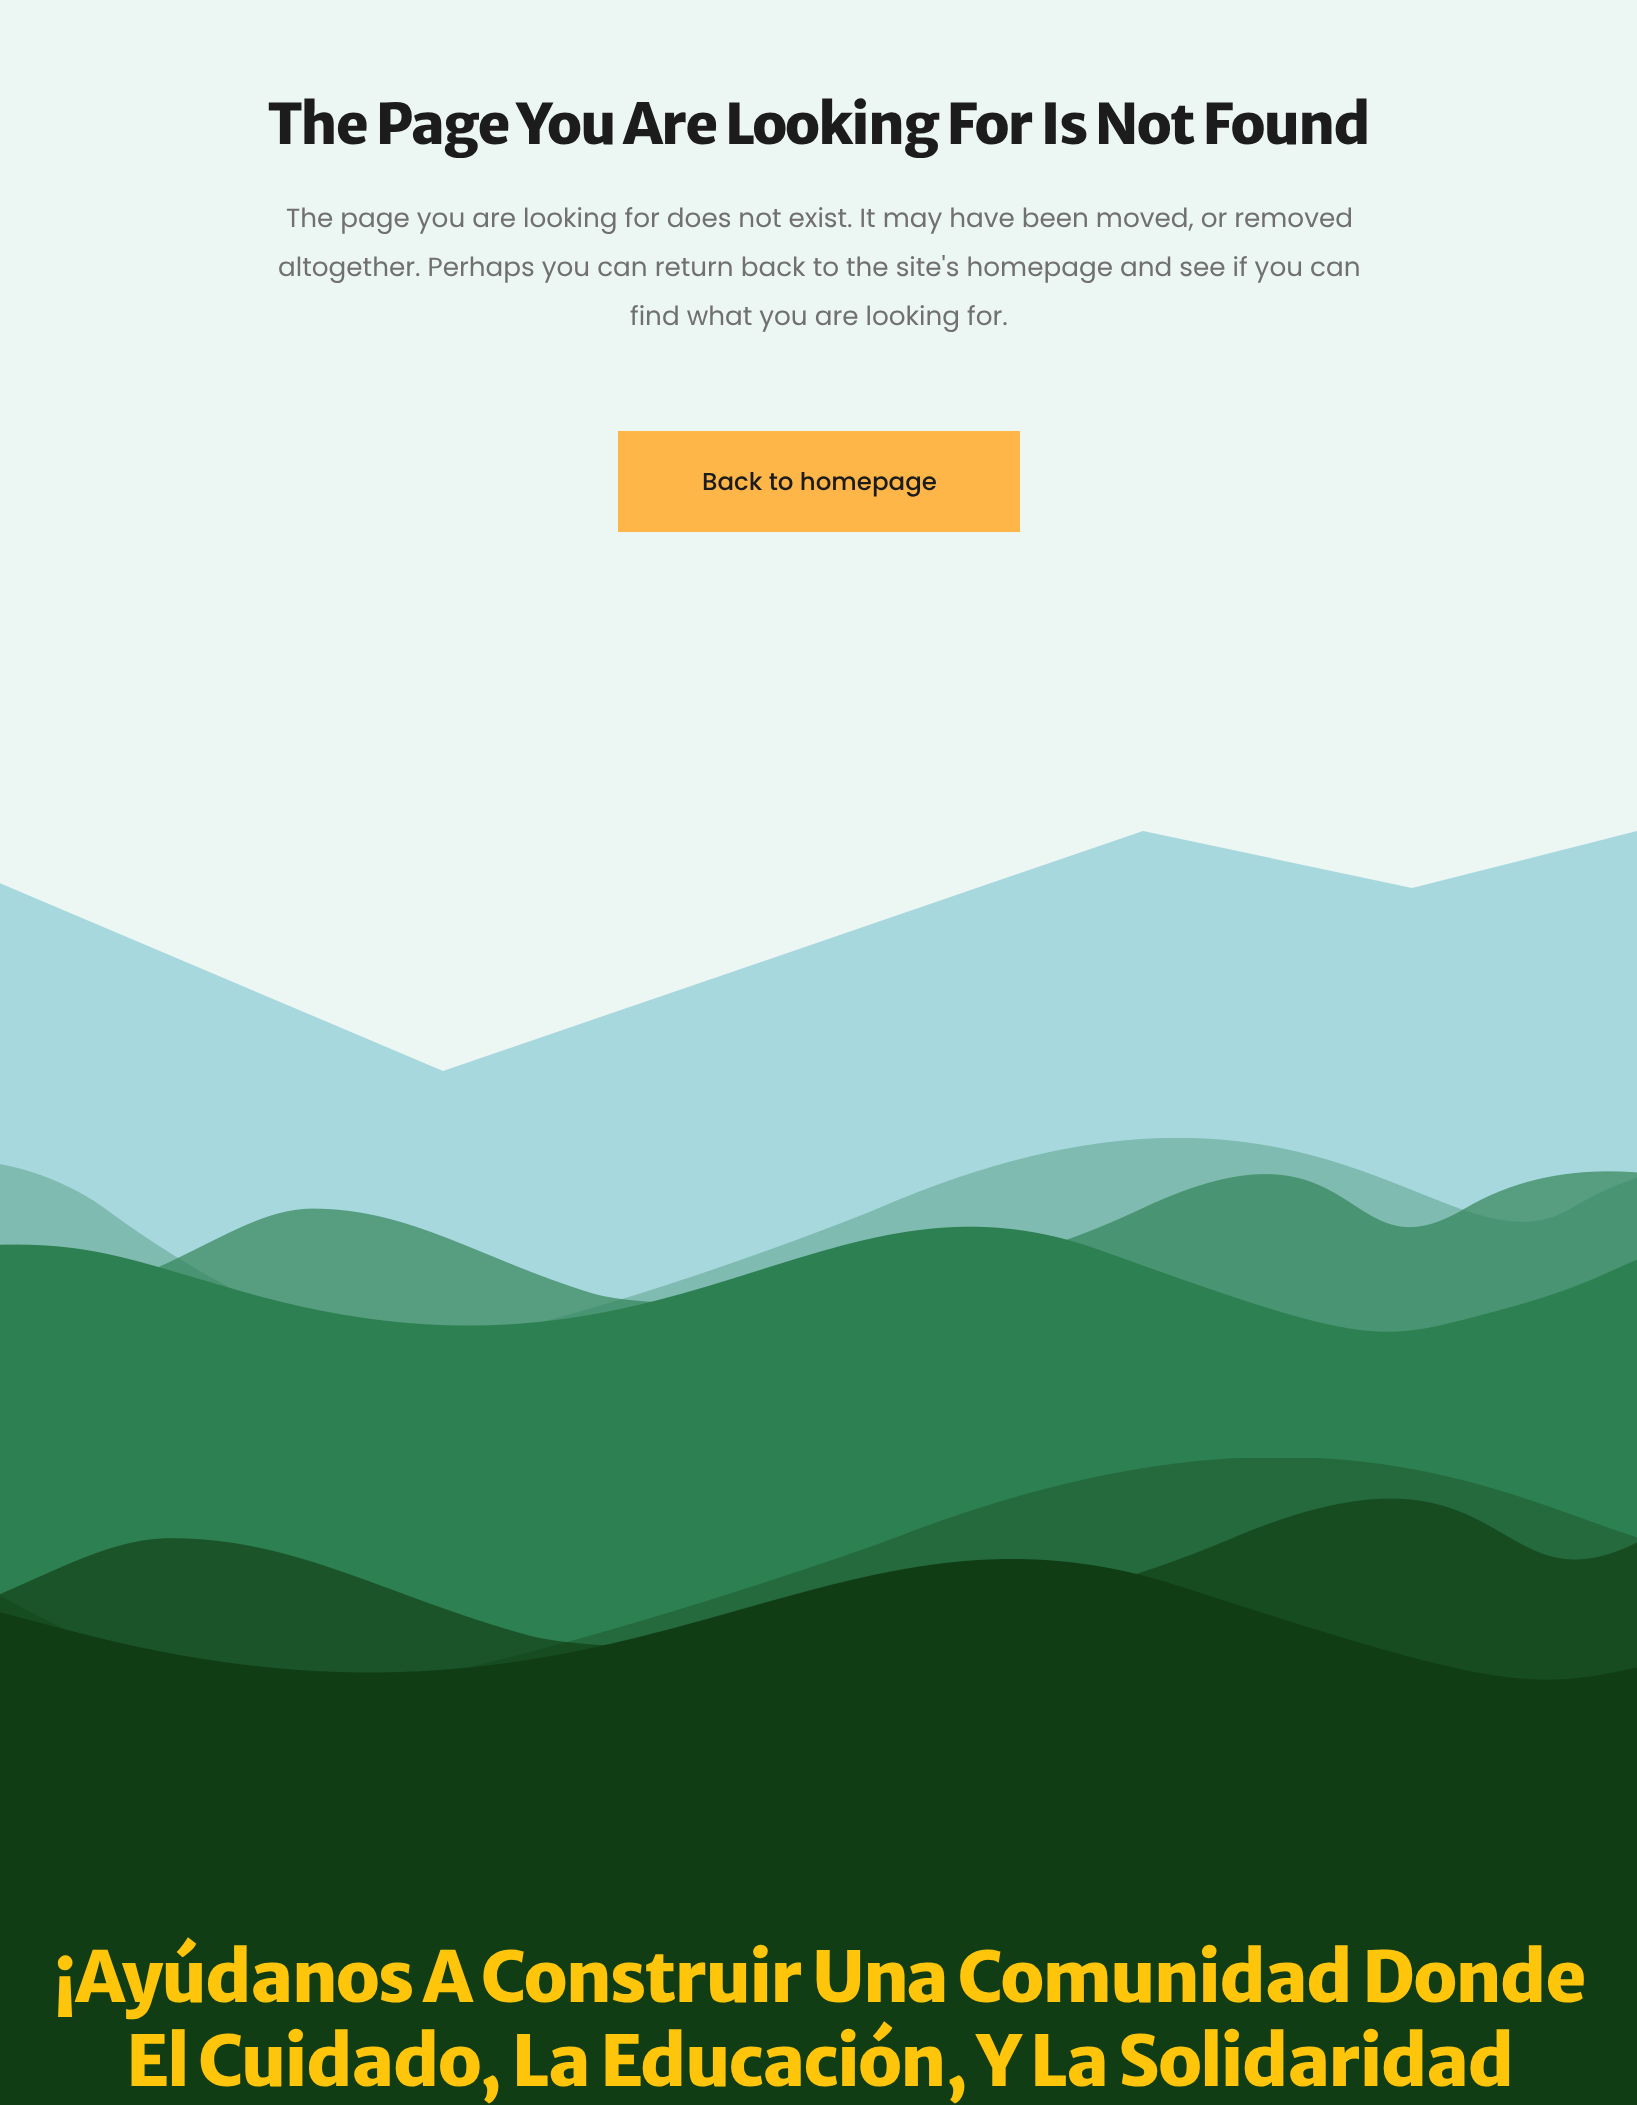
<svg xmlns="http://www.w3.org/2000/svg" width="1637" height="2105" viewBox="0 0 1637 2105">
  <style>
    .t1 { font: 800 56px Merriweather Sans; letter-spacing: -1.75px; fill: #1c1c1c; }
    .t2 { font: 26.25px Poppins; fill: #707070; }
    .t3 { font: 500 24.5px Poppins; fill: #1c1c1c; }
    .t4 { font: 800 70px Merriweather Sans; letter-spacing: -1.75px; fill: #fec50a; }
  </style>
  <defs>
    <clipPath id="clip1"><rect x="0" y="739" width="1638" height="339"/></clipPath>
  </defs>
  <rect width="100%" height="100%" fill="#ecf6f2"/>
  <text x="268" y="144" class="t1">The Page You Are Looking For Is Not Found</text>
  <text x="286" y="227" class="t2">The page you are looking for does not exist. It may have been moved, or removed</text>
  <text x="278" y="276" class="t2">altogether. Perhaps you can return back to the site's homepage and see if you can</text>
  <text x="630" y="325" class="t2">find what you are looking for.</text>
  <rect x="618" y="431" width="402" height="101" fill="#ffb648"/>
  <text x="702" y="490" class="t3">Back to homepage</text>
  <rect x="0" y="831" width="1637" height="501" fill="#a7d8de"/>
  <g clip-path="url(#clip1)">
    <path d="M1412 888L1143 831L443 1071L-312 751V738H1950V752" fill="#ecf6f2"/>
  </g>
  <image x="0" y="1138" width="1637" height="215" href="images/1.png"/>
  <rect x="0" y="1353" width="1637" height="327" fill="#2d8051"/>
  <image x="0" y="1458" width="1637" height="247" href="images/2.png"/>
  <rect x="0" y="1705" width="1637" height="400" fill="#113d14"/>
  <text x="54" y="2002" class="t4">¡Ayúdanos A Construir Una Comunidad Donde</text>
  <text x="126" y="2086" class="t4">El Cuidado, La Educación, Y La Solidaridad</text>
</svg>
